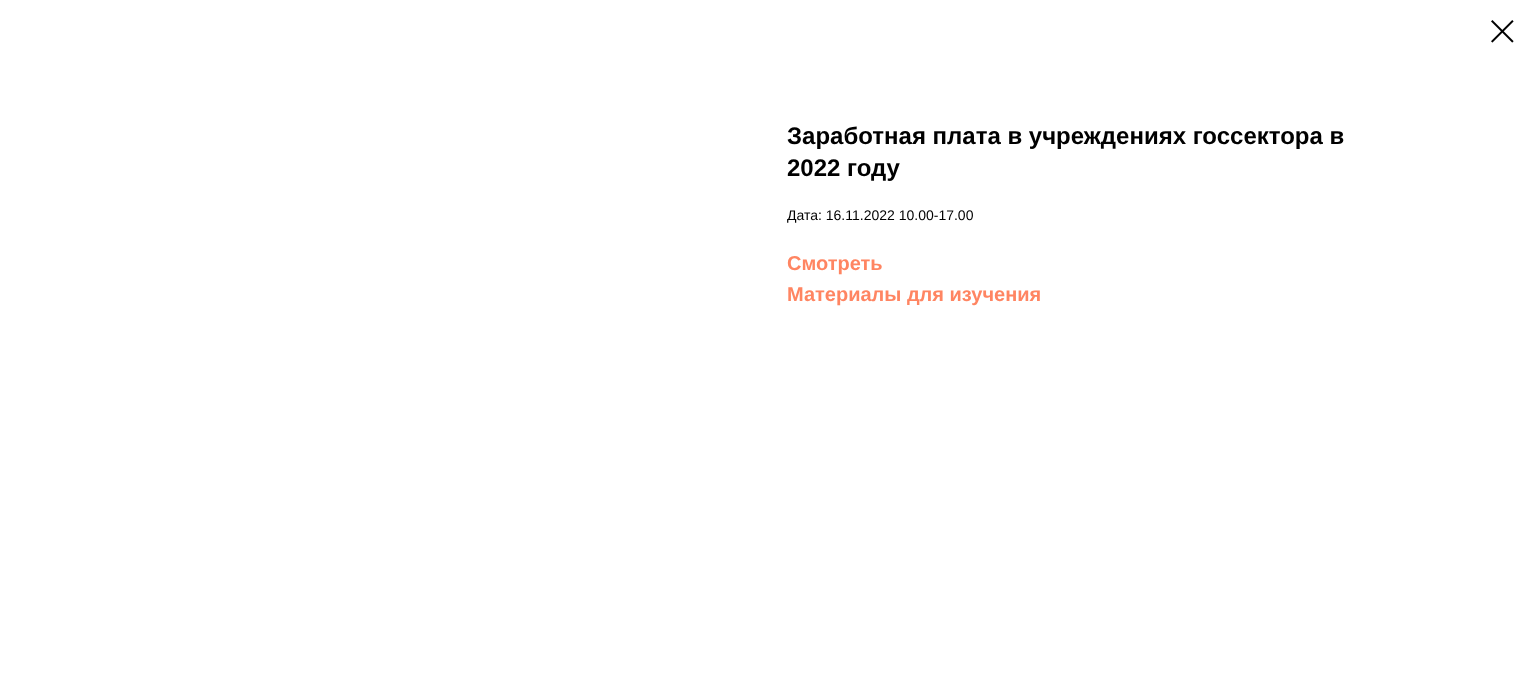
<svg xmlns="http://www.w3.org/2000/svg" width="1534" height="678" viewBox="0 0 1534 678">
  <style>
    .t1 { font: bold 24px Liberation Sans; fill: #000; }
    .t2 { font: 14px Liberation Sans; fill: #000; }
    .t3 { font: bold 20px Liberation Sans; fill: #ff8562; }
  </style>
  <rect width="100%" height="100%" fill="#fff"/>
  <image x="1491" y="20" width="23" height="23" href="images/1.png"/>
  <text x="787" y="144" class="t1">Заработная плата в учреждениях госсектора в</text>
  <text x="787" y="176" class="t1">2022 году</text>
  <text x="787" y="220" class="t2">Дата: 16.11.2022 10.00-17.00</text>
  <text x="787" y="270" class="t3">Смотреть</text>
  <text x="787" y="301" class="t3">Материалы для изучения</text>
</svg>
